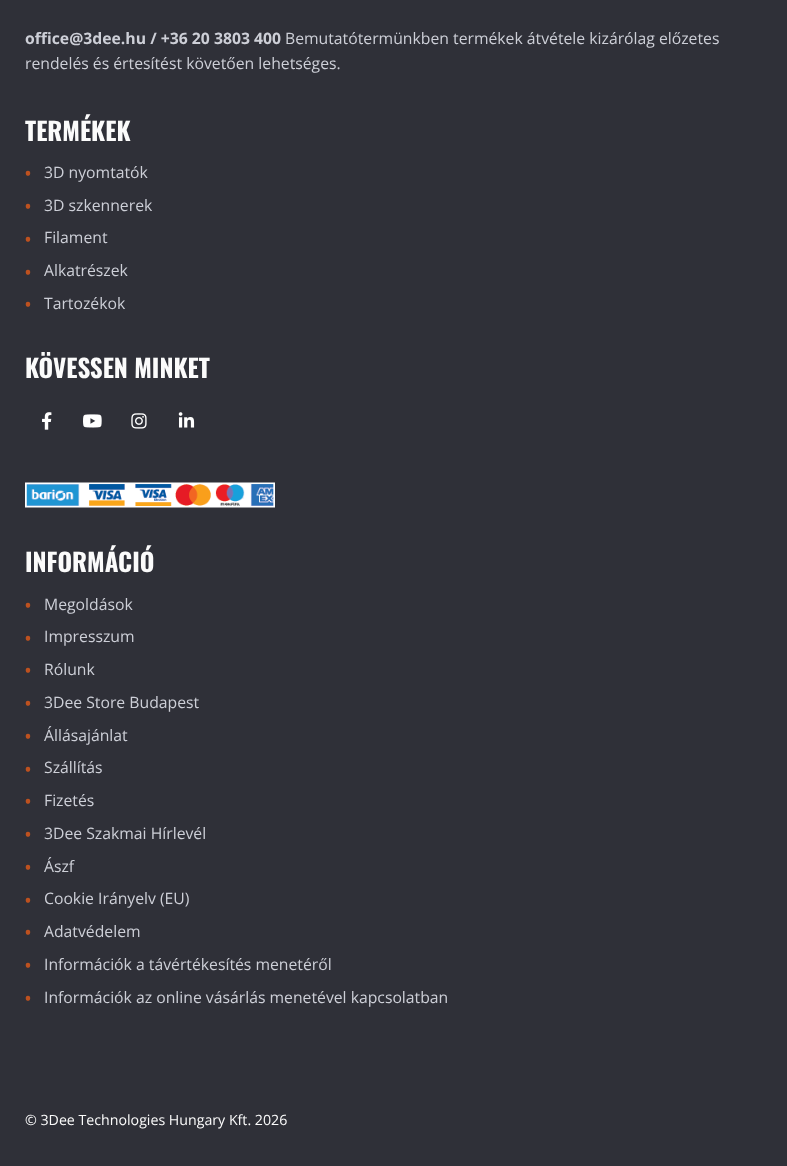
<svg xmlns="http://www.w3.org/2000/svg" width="787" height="1166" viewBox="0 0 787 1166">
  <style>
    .t1 { font: bold 15.75px Open Sans; fill: #cdcfd7; }
    .t2 { font: 15.75px Open Sans; fill: #cdcfd7; }
    .t3 { font: bold 25px Oswald; fill: #fbfbfb; }
    .t4 { font: bold 15.75px Open Sans; fill: #bd511f; }
    .t5 { font: 14.2px Open Sans; fill: #fbfbfb; }
  </style>
  <rect width="100%" height="100%" fill="#2f3038"/>
  <text x="25" y="44" class="t1">office@3dee.hu / +36 20 3803 400</text>
  <text x="285" y="44" class="t2">Bemutatótermünkben termékek átvétele kizárólag előzetes</text>
  <text x="25" y="69" class="t2">rendelés és értesítést követően lehetséges.</text>
  <text x="25" y="141" class="t3">TERMÉKEK</text>
  <text x="25" y="179" class="t4">•</text>
  <text x="44" y="178" class="t2">3D nyomtatók</text>
  <text x="25" y="212" class="t4">•</text>
  <text x="44" y="211" class="t2">3D szkennerek</text>
  <text x="25" y="245" class="t4">•</text>
  <text x="44" y="243" class="t2">Filament</text>
  <text x="25" y="278" class="t4">•</text>
  <text x="44" y="276" class="t2">Alkatrészek</text>
  <text x="25" y="310" class="t4">•</text>
  <text x="44" y="309" class="t2">Tartozékok</text>
  <text x="25" y="378" class="t3">KÖVESSEN MINKET</text>
  <image x="42" y="412" width="10" height="18" href="images/1.png"/>
  <image x="83" y="414" width="19" height="14" href="images/2.png"/>
  <image x="131" y="413" width="16" height="16" href="images/3.png"/>
  <image x="178" y="412" width="17" height="16" href="images/4.png"/>
  <image x="25" y="482" width="250" height="26" href="images/5.png"/>
  <text x="25" y="572" class="t3">INFORMÁCIÓ</text>
  <text x="25" y="611" class="t4">•</text>
  <text x="44" y="610" class="t2">Megoldások</text>
  <text x="25" y="644" class="t4">•</text>
  <text x="44" y="642" class="t2">Impresszum</text>
  <text x="25" y="676" class="t4">•</text>
  <text x="44" y="675" class="t2">Rólunk</text>
  <text x="25" y="709" class="t4">•</text>
  <text x="44" y="708" class="t2">3Dee Store Budapest</text>
  <text x="25" y="742" class="t4">•</text>
  <text x="44" y="741" class="t2">Állásajánlat</text>
  <text x="25" y="775" class="t4">•</text>
  <text x="44" y="773" class="t2">Szállítás</text>
  <text x="25" y="807" class="t4">•</text>
  <text x="44" y="806" class="t2">Fizetés</text>
  <text x="25" y="840" class="t4">•</text>
  <text x="44" y="839" class="t2">3Dee Szakmai Hírlevél</text>
  <text x="25" y="873" class="t4">•</text>
  <text x="44" y="872" class="t2">Ászf</text>
  <text x="25" y="906" class="t4">•</text>
  <text x="44" y="904" class="t2">Cookie Irányelv (EU)</text>
  <text x="25" y="938" class="t4">•</text>
  <text x="44" y="937" class="t2">Adatvédelem</text>
  <text x="25" y="971" class="t4">•</text>
  <text x="44" y="970" class="t2">Információk a távértékesítés menetéről</text>
  <text x="25" y="1004" class="t4">•</text>
  <text x="44" y="1003" class="t2">Információk az online vásárlás menetével kapcsolatban</text>
  <text x="25" y="1125" class="t5">© 3Dee Technologies Hungary Kft. 2026</text>
</svg>
